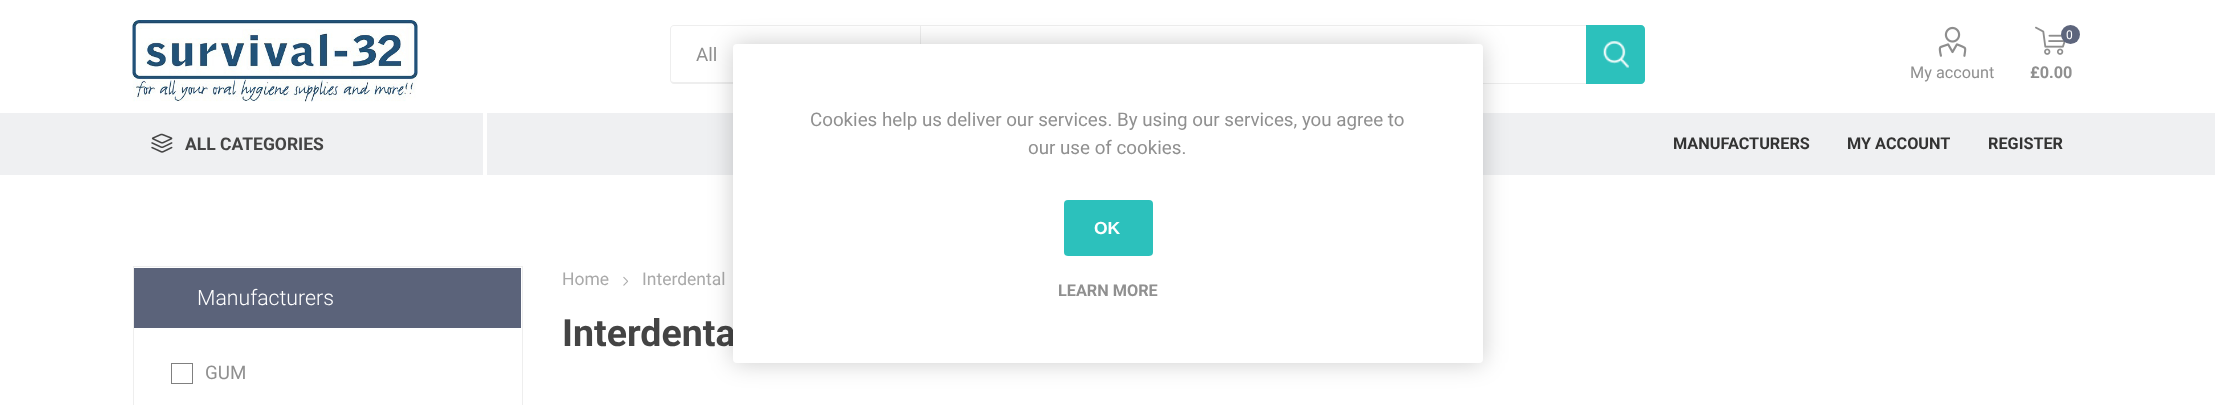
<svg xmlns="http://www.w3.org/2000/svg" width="2215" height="405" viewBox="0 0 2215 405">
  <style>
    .t1 { font: 18.75px Roboto; fill: #909090; }
    .t2 { font: 16.25px Roboto; fill: #909090; }
    .t3 { font: 12px Roboto; fill: #fff; }
    .t4 { font: bold 16.25px Roboto; fill: #909090; }
    .t5 { font: bold 17.5px Roboto; fill: #444; }
    .t6 { font: bold 16.25px Roboto; fill: #333; }
    .t7 { font: 300 21.25px Roboto; fill: #fff; }
    .t8 { font: 17.5px Roboto; fill: #a9a9a9; }
    .t9 { font: bold 37.5px Roboto; fill: #444; }
    .t10 { font: bold 17.5px Liberation Sans; fill: #fff; }
  </style>
  <rect width="100%" height="100%" fill="#fff"/>
  <image x="132" y="20" width="286" height="82" href="images/1.png"/>
  <path d="M674 25H920V84H674C672 84 670 82 670 80V29C670 27 672 25 674 25ZM674 26H920V82H674C672 82 671 81 671 80V29C671 27 672 26 674 26Z" fill="#eee" fill-rule="evenodd"/>
  <text x="696" y="61" class="t1">All</text>
  <rect x="920" y="25" width="666" height="1" fill="#eee"/>
  <rect x="1483" y="83" width="103" height="1" fill="#eee"/>
  <rect x="920" y="25" width="1" height="19" fill="#eee"/>
  <path d="M1586 25H1641C1643 25 1645 27 1645 29V80C1645 82 1643 84 1641 84H1586Z" fill="#2cc1bc"/>
  <image x="1603" y="41" width="26" height="27" href="images/2.png"/>
  <image x="1938" y="26" width="29" height="31" href="images/3.png"/>
  <text x="1910" y="78" class="t2">My account</text>
  <image x="2035" y="26" width="31" height="29" href="images/4.png"/>
  <circle cx="2070.5" cy="34.5" r="9.5" fill="#5d657c"/>
  <text x="2066" y="39" class="t3">0</text>
  <text x="2030" y="78" class="t4">£0.00</text>
  <rect x="0" y="113" width="2215" height="62" fill="#eff0f2"/>
  <rect x="483" y="113" width="4" height="62" fill="#fff"/>
  <image x="151" y="133" width="22" height="20" href="images/5.png"/>
  <text x="185" y="150" class="t5">ALL CATEGORIES</text>
  <text x="1673" y="149" class="t6">MANUFACTURERS</text>
  <text x="1847" y="149" class="t6">MY ACCOUNT</text>
  <text x="1988" y="149" class="t6">REGISTER</text>
  <rect x="133.5" y="266.5" width="389" height="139" fill="none" stroke="#eee"/>
  <rect x="134" y="268" width="387" height="60" fill="#5b637a"/>
  <text x="197" y="305" class="t7">Manufacturers</text>
  <rect x="171.5" y="363.5" width="21" height="20" fill="none" stroke="#808080"/>
  <text x="205" y="379" class="t1">GUM</text>
  <text x="562" y="285" class="t8">Home</text>
  <image x="623" y="276" width="6" height="10" href="images/6.png"/>
  <text x="642" y="285" class="t8">Interdental</text>
  <text x="562" y="346" class="t9">Interdenta</text>
  <rect x="733" y="44" width="750" height="319" rx="4" fill="#00000033" filter="blur(12.5px)"/>
  <rect x="733" y="44" width="750" height="319" rx="4" fill="#fff"/>
  <text x="810" y="126" class="t1">Cookies help us deliver our services. By using our services, you agree to</text>
  <text x="1028" y="154" class="t1">our use of cookies.</text>
  <rect x="1064" y="200" width="89" height="56" rx="4" fill="#2cc1bc"/>
  <text x="1094" y="234" class="t10">OK</text>
  <text x="1058" y="296" class="t4">LEARN MORE</text>
</svg>
